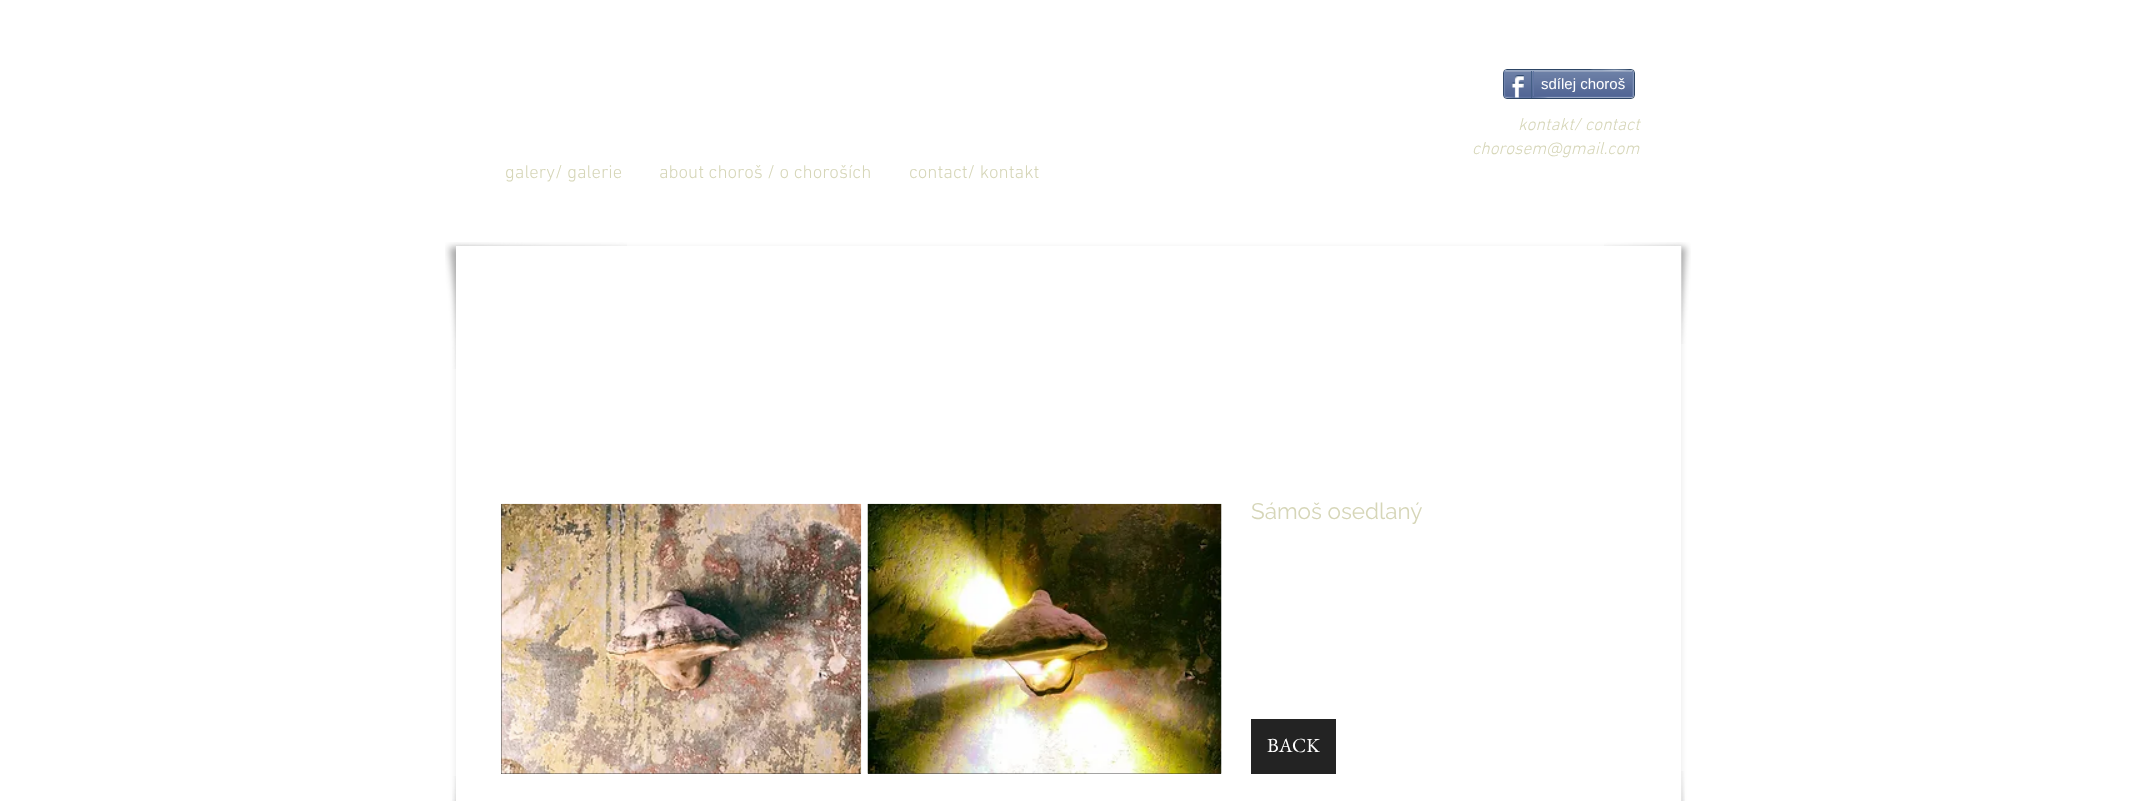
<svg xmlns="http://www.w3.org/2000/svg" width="2136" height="801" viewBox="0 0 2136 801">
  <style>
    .t1 { font: 15px Liberation Sans; fill: #fff; }
    .t2 { font: italic 300 17.5px 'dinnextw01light'; fill: #d6d6b8; }
    .t3 { font: 300 18.75px 'dinnextw01light'; fill: #d6d6b8; }
    .t4 { font: 22.5px Raleway; fill: #d6d6b8; }
    .t5 { font: 20px EB Garamond; fill: #fff; }
  </style>
  <defs>
    <clipPath id="clip1"><path d="M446 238H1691V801H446ZM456 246H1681V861H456Z" clip-rule="evenodd"/></clipPath>
  </defs>
  <rect width="100%" height="100%" fill="#fff"/>
  <rect x="1503.5" y="69.5" width="131" height="29" rx="3.5" fill="none" stroke="#2d4565"/>
  <image x="1503" y="71" width="131" height="27" href="images/1.png"/>
  <path d="M1505 71L1506 70.5H1589.5C1592.5 70.5 1631 69.5 1632.5 71" fill="none" stroke="#9aabc6" stroke-width="1.2"/>
  <path d="M1632.5 71L1633 72.5V95L1632.5 96.5" fill="none" stroke="#6f83ad" stroke-width="1.2"/>
  <path d="M1632.5 96.5L1631 97H1548C1545 97 1506.5 98 1505 96.5" fill="none" stroke="#6176a3" stroke-width="1.2"/>
  <path d="M1505 96.5L1504.5 95V72.5L1505 71" fill="none" stroke="#6f83ad" stroke-width="1.2"/>
  <image x="1511" y="75" width="13" height="23" href="images/2.png"/>
  <rect x="1531" y="71" width="1" height="27" fill="#425e85"/>
  <text x="1541" y="89" class="t1">sdílej choroš</text>
  <rect x="1533" y="71" width="1" height="25" fill="#6176a3"/>
  <text x="1518" y="130" class="t2">kontakt/ contact</text>
  <text x="1472" y="154" class="t2">chorosem@gmail.com</text>
  <text x="505" y="178" class="t3">galery/ galerie</text>
  <text x="659" y="178" class="t3">about choroš / o choroších</text>
  <text x="909" y="178" class="t3">contact/ kontakt</text>
  <image x="445" y="242" width="182" height="127" href="images/3.png"/>
  <image x="1604" y="242" width="87" height="102" href="images/4.png"/>
  <image x="452" y="776" width="4" height="25" href="images/5.png"/>
  <image x="1681" y="771" width="4" height="30" href="images/6.png"/>
  <g clip-path="url(#clip1)">
    <rect x="456" y="248" width="1225" height="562" fill="#0000001a" filter="blur(3px)"/>
  </g>
  <rect x="462.5" y="252.5" width="1212" height="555" fill="none" stroke="#fff" stroke-width="13"/>
  <rect x="501" y="504" width="360" height="270" fill="#2f2e2e"/>
  <image x="501" y="503" width="361" height="271" href="images/7.png"/>
  <rect x="868" y="773" width="353" height="1" fill="#2f2e2e"/>
  <image x="867" y="503" width="355" height="271" href="images/8.png"/>
  <text x="1251" y="519" class="t4">Sámoš osedlaný</text>
  <rect x="1251" y="719" width="85" height="55" fill="#232323"/>
  <text x="1267" y="752" class="t5">BACK</text>
</svg>
